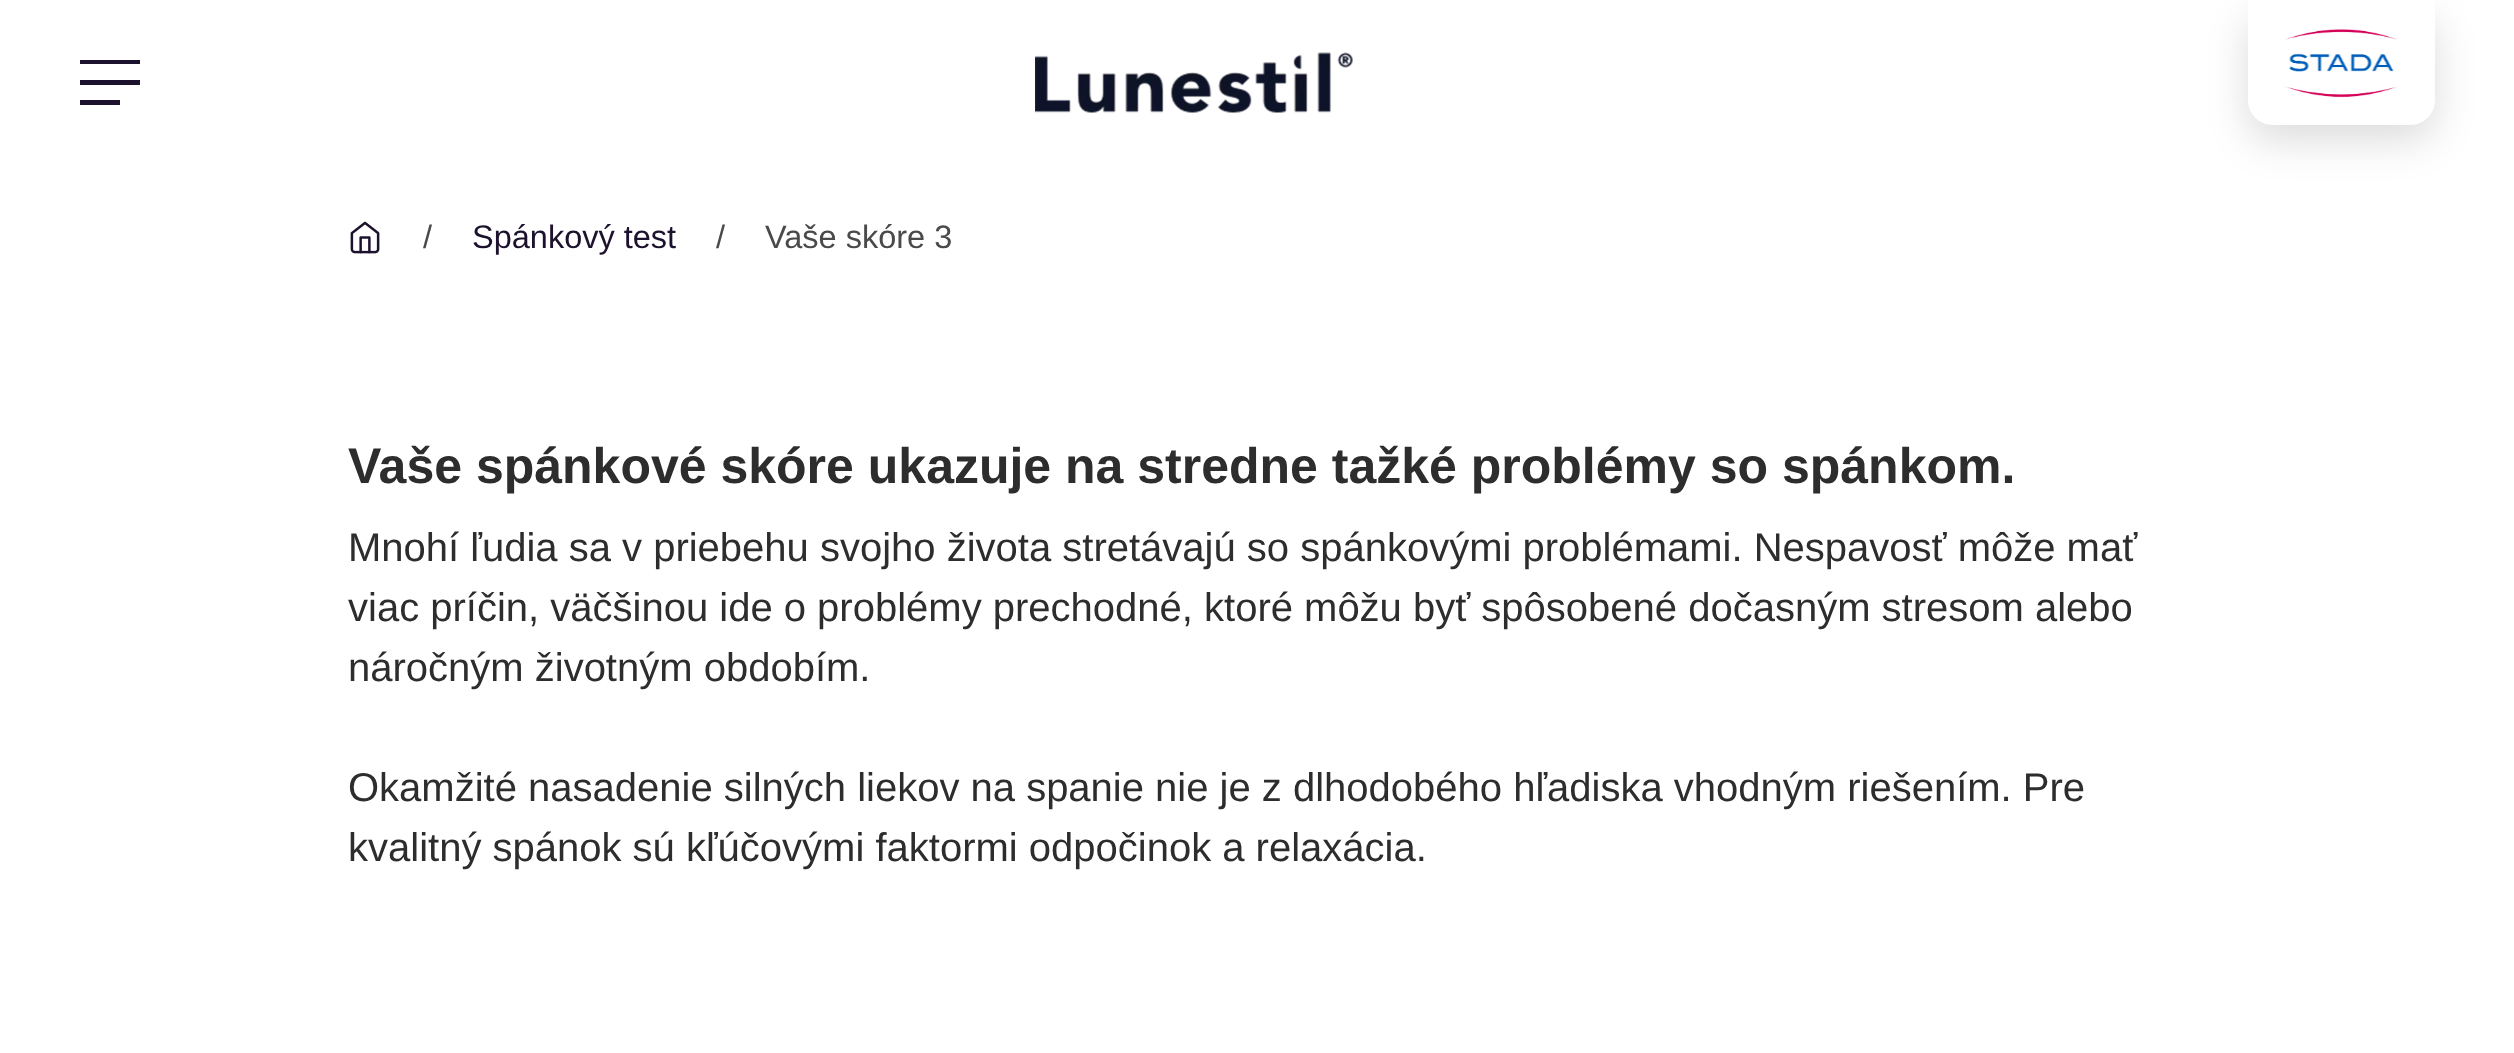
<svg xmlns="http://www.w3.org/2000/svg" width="2514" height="1053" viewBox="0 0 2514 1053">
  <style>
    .t1 { font: 32.5px Liberation Sans; fill: #4a4a4a; }
    .t2 { font: 32.5px Liberation Sans; fill: #1d122d; }
    .t3 { font: bold 50px Liberation Sans; fill: #2d2d2d; }
    .t4 { font: 40px Liberation Sans; fill: #2d2d2d; }
  </style>
  <defs>
    <clipPath id="clip1"><rect x="80" y="60" width="60" height="45"/></clipPath>
  </defs>
  <rect width="100%" height="100%" fill="#fff"/>
  <g clip-path="url(#clip1)">
    <path d="M120 100H80V105H120ZM148 60H80V64H148ZM80 85H148V80H80Z" fill="#1d122d"/>
  </g>
  <image x="1035" y="52" width="318" height="61" href="images/1.png"/>
  <rect x="2248" y="15" width="187" height="125" rx="25" fill="#00000024" filter="blur(20px)"/>
  <path d="M2248 0H2435V100C2435 114 2424 125 2410 125H2273C2259 125 2248 114 2248 100Z" fill="#fff"/>
  <image x="2284" y="29" width="114" height="69" href="images/2.png"/>
  <image x="350" y="221" width="30" height="33" href="images/3.png"/>
  <text x="423" y="248" class="t1">/</text>
  <text x="472" y="248" class="t2">Spánkový test</text>
  <text x="716" y="248" class="t1">/</text>
  <text x="765" y="248" class="t1">Vaše skóre 3</text>
  <text x="348" y="483" class="t3">Vaše spánkové skóre ukazuje na stredne tažké problémy so spánkom.</text>
  <text x="348" y="561" class="t4">Mnohí ľudia sa v priebehu svojho života stretávajú so spánkovými problémami. Nespavosť môže mať</text>
  <text x="348" y="621" class="t4">viac príčin, väčšinou ide o problémy prechodné, ktoré môžu byť spôsobené dočasným stresom alebo</text>
  <text x="348" y="681" class="t4">náročným životným obdobím.</text>
  <text x="348" y="801" class="t4">Okamžité nasadenie silných liekov na spanie nie je z dlhodobého hľadiska vhodným riešením. Pre</text>
  <text x="348" y="861" class="t4">kvalitný spánok sú kľúčovými faktormi odpočinok a relaxácia.</text>
</svg>
